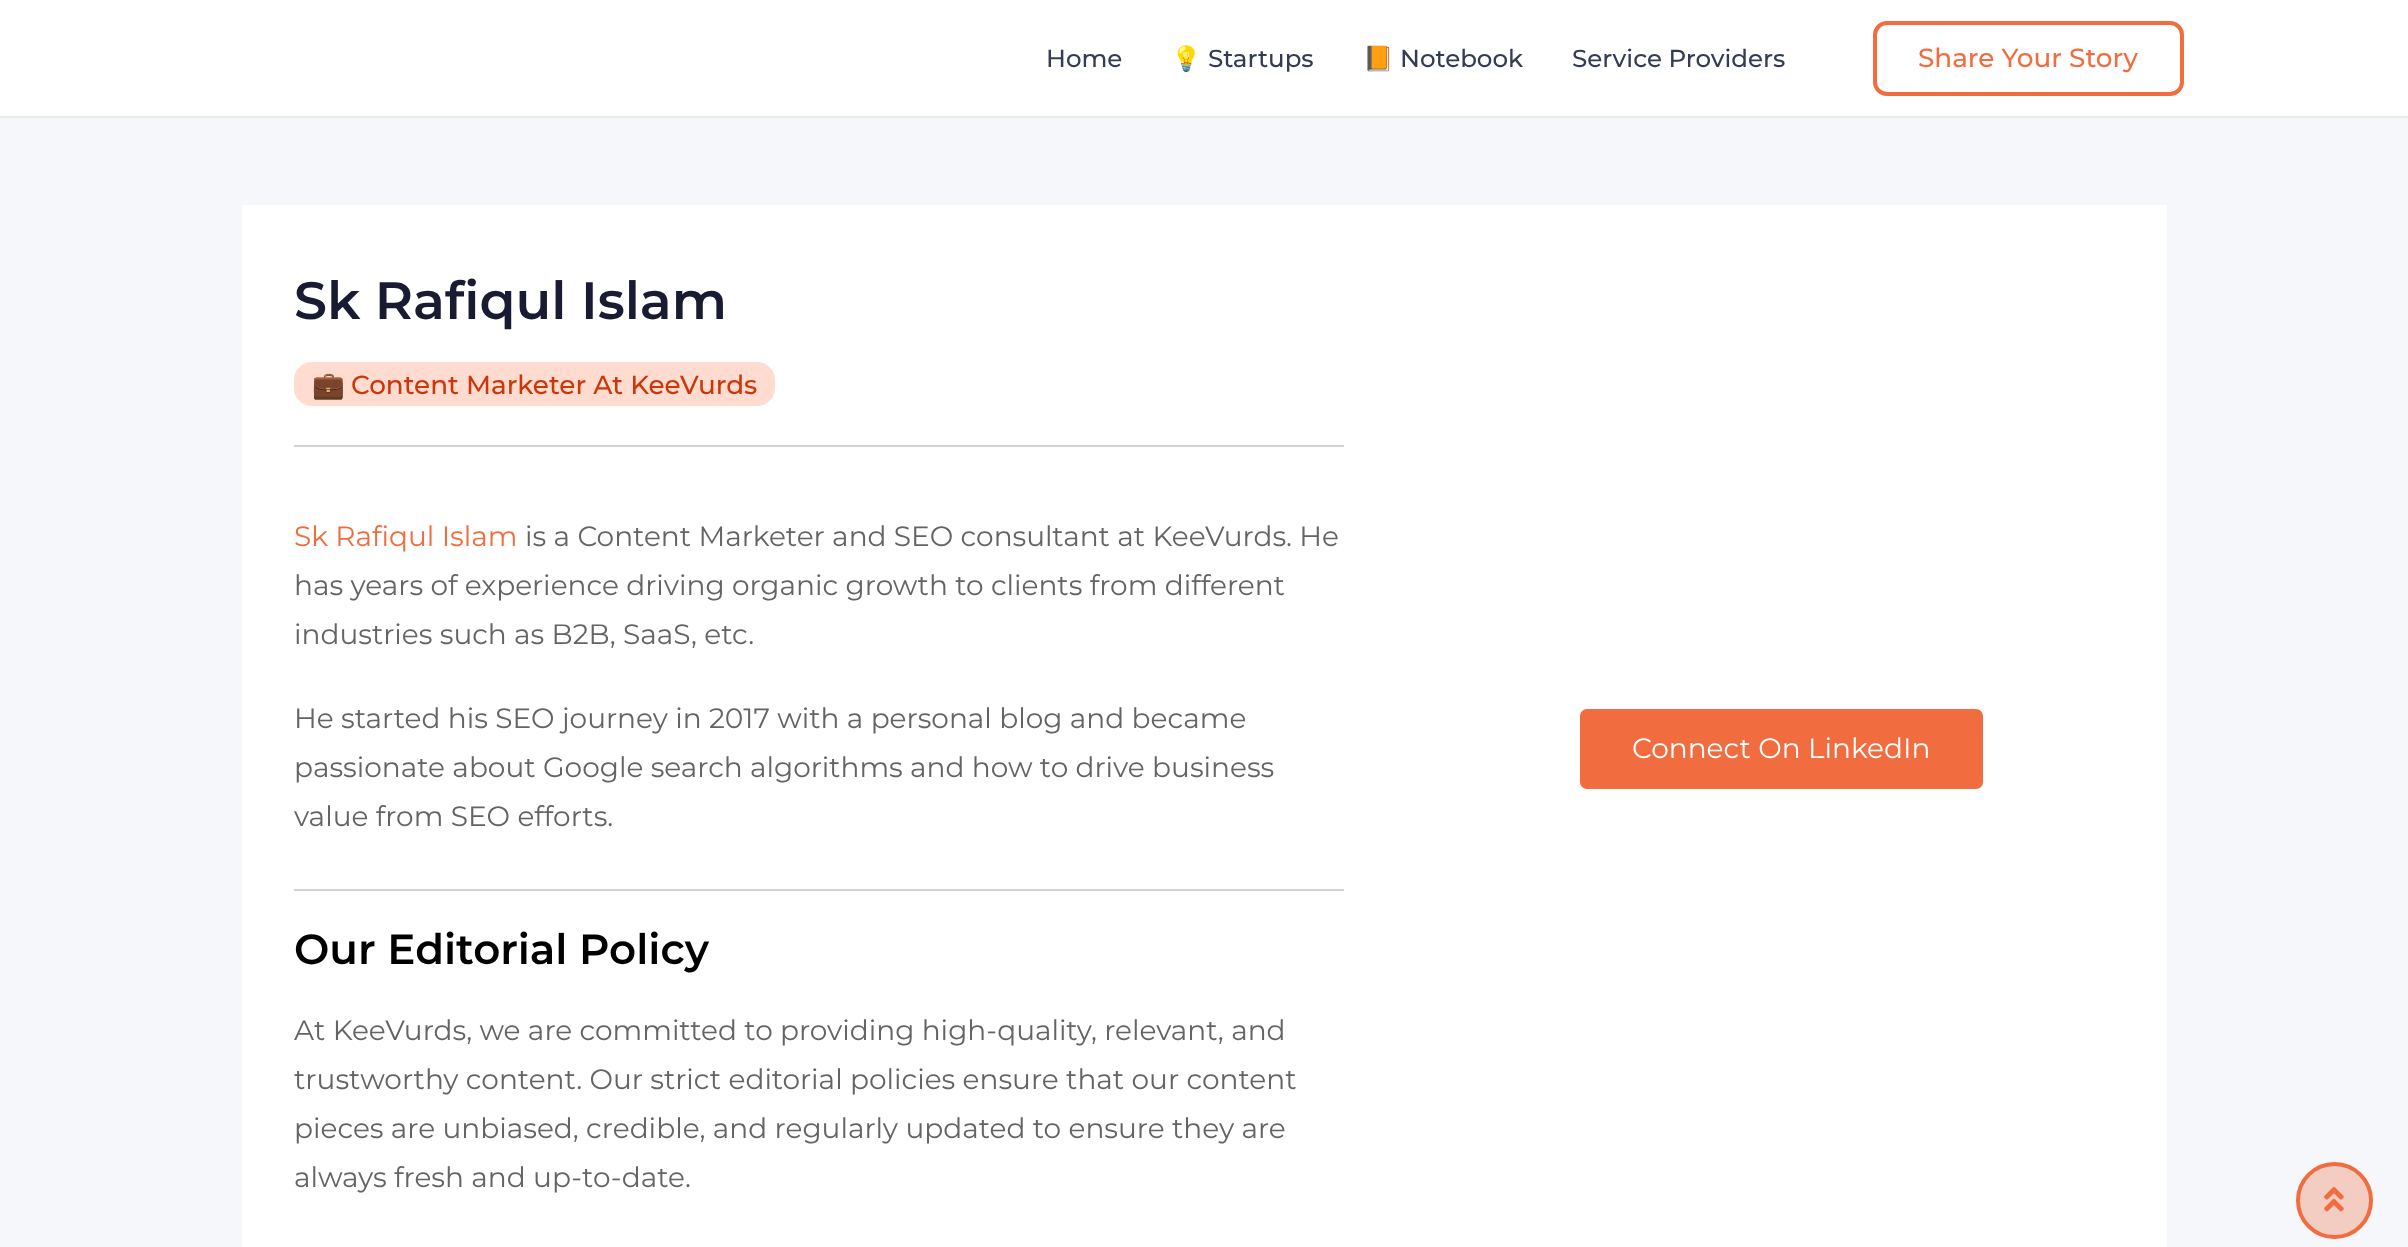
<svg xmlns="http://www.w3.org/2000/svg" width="2408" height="1247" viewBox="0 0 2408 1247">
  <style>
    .t1 { font: 500 24.5px Montserrat; fill: #343c53; }
    .t2 { font: 24.5px Noto Color Emoji; fill: #343c53; }
    .t3 { font: 500 26.25px Montserrat; fill: #f16c3f; }
    .t4 { font: 600 52.5px Montserrat; fill: #181b31; }
    .t5 { font: 26.25px Noto Color Emoji; fill: #cc3609; }
    .t6 { font: 500 26.25px Montserrat; fill: #cc3609; }
    .t7 { font: 28px Montserrat; fill: #f16c3f; }
    .t8 { font: 28px Montserrat; fill: #646464; }
    .t9 { font: 600 42px Montserrat; fill: #000; }
    .t10 { font: 28px Montserrat; fill: #fff; }
  </style>
  <rect width="100%" height="100%" fill="#f5f7fa"/>
  <rect x="0" y="0" width="2408" height="116" fill="#fff"/>
  <rect x="0" y="116" width="2408" height="2" fill="#e9e9e9"/>
  <text x="1046" y="67" class="t1">Home</text>
  <text x="1171" y="67" class="t2">💡</text>
  <text x="1208" y="67" class="t1">Startups</text>
  <text x="1363" y="67" class="t2">📙</text>
  <text x="1400" y="67" class="t1">Notebook</text>
  <text x="1572" y="67" class="t1">Service Providers</text>
  <rect x="1875" y="23" width="307" height="71" rx="12" fill="none" stroke="#f16c3f" stroke-width="4"/>
  <text x="1918" y="67" class="t3">Share Your Story</text>
  <rect x="242" y="205" width="1925" height="1042" fill="#fff"/>
  <text x="294" y="319" class="t4">Sk Rafiqul Islam</text>
  <rect x="294" y="362" width="481" height="44" rx="18" fill="#ffdbd0"/>
  <text x="312" y="394" class="t5">💼</text>
  <text x="351" y="394" class="t6">Content Marketer At KeeVurds</text>
  <rect x="294" y="445" width="1050" height="2" fill="#d3d3d3"/>
  <text x="294" y="546" class="t7">Sk Rafiqul Islam</text>
  <text x="525" y="546" class="t8">is a Content Marketer and SEO consultant at KeeVurds. He</text>
  <text x="294" y="595" class="t8">has years of experience driving organic growth to clients from different</text>
  <text x="294" y="644" class="t8">industries such as B2B, SaaS, etc.</text>
  <text x="294" y="728" class="t8">He started his SEO journey in 2017 with a personal blog and became</text>
  <text x="294" y="777" class="t8">passionate about Google search algorithms and how to drive business</text>
  <text x="294" y="826" class="t8">value from SEO efforts.</text>
  <rect x="294" y="889" width="1050" height="2" fill="#d3d3d3"/>
  <text x="294" y="964" class="t9">Our Editorial Policy</text>
  <text x="294" y="1040" class="t8">At KeeVurds, we are committed to providing high-quality, relevant, and</text>
  <text x="294" y="1089" class="t8">trustworthy content. Our strict editorial policies ensure that our content</text>
  <text x="294" y="1138" class="t8">pieces are unbiased, credible, and regularly updated to ensure they are</text>
  <text x="294" y="1187" class="t8">always fresh and up-to-date.</text>
  <rect x="1580" y="709" width="403" height="80" rx="7" fill="#f16c3f"/>
  <text x="1632" y="758" class="t10">Connect On LinkedIn</text>
  <circle cx="2334.5" cy="1200.5" r="36.5" fill="#f4cdc2" stroke="#f16c3f" stroke-width="4"/>
  <image x="2324" y="1187" width="20" height="25" href="images/1.png"/>
</svg>
